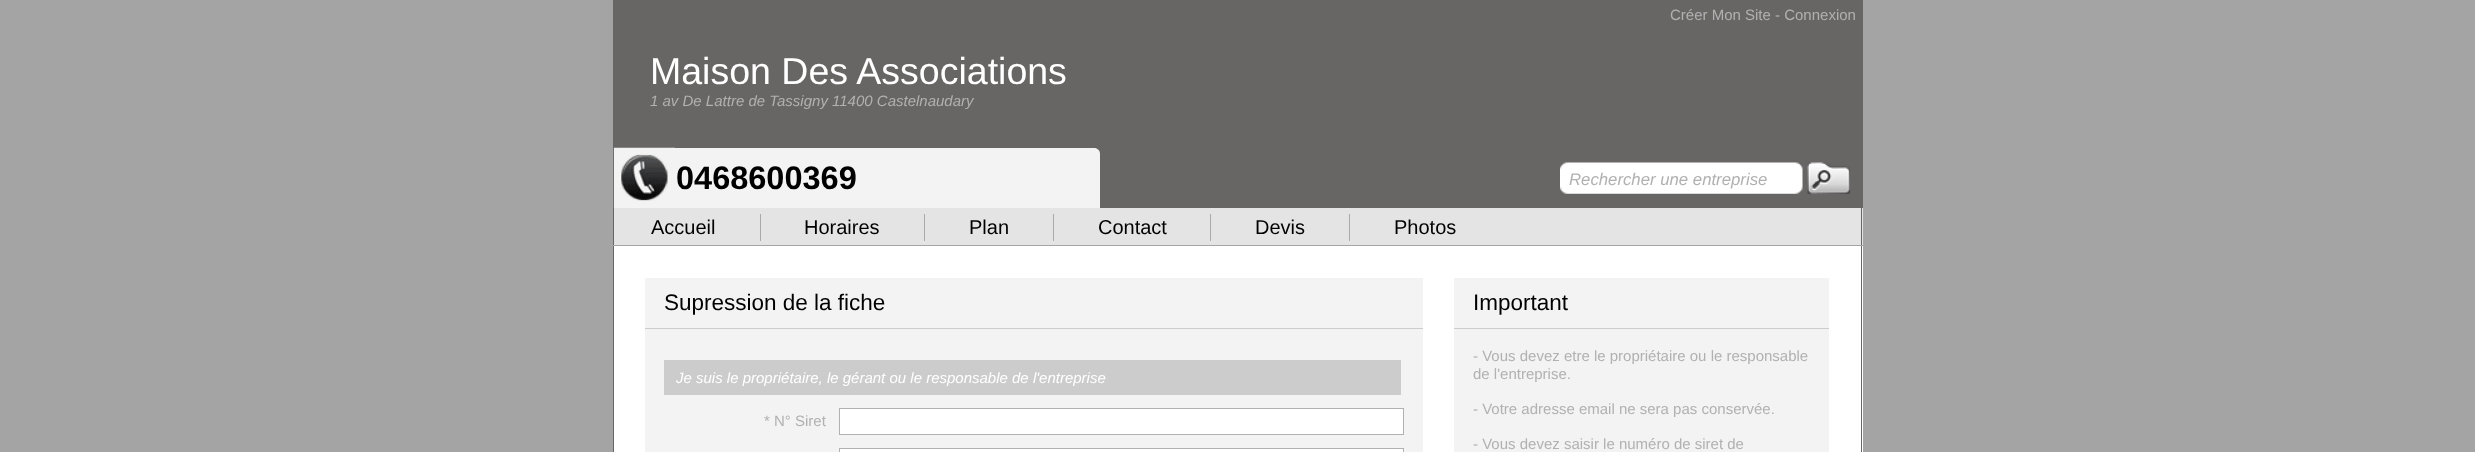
<svg xmlns="http://www.w3.org/2000/svg" width="2475" height="452" viewBox="0 0 2475 452">
  <style>
    .t1 { font: 15px Liberation Sans; fill: #b2b1b1; }
    .t2 { font: 37.5px Liberation Sans; fill: #fff; }
    .t3 { font: italic 15px Liberation Sans; fill: #b2b1b1; }
    .t4 { font: bold 32.5px Liberation Sans; fill: #000; }
    .t5 { font: italic 16.75px Liberation Sans; fill: #b2b1b1; }
    .t6 { font: 20px Liberation Sans; fill: #000; }
    .t7 { font: 22.5px Liberation Sans; fill: #000; }
    .t8 { font: italic 15px Liberation Sans; fill: #fff; }
  </style>
  <rect width="100%" height="100%" fill="#a4a4a4"/>
  <rect x="613" y="0" width="1250" height="208" fill="#686565"/>
  <text x="1670" y="20" class="t1">Créer Mon Site - Connexion</text>
  <text x="650" y="84" class="t2">Maison Des Associations</text>
  <text x="650" y="106" class="t3">1 av De Lattre de Tassigny 11400 Castelnaudary</text>
  <path d="M614 148H1094C1097.5 148 1100 150.5 1100 154V208H614Z" fill="#f3f3f3"/>
  <image x="613" y="147" width="62" height="60" href="images/1.png"/>
  <text x="676" y="189" class="t4">0468600369</text>
  <image x="1560" y="162" width="243" height="32" href="images/2.png"/>
  <text x="1569" y="185" class="t5">Rechercher une entreprise</text>
  <image x="1807" y="162" width="43" height="32" href="images/3.png"/>
  <rect x="614" y="208" width="1249" height="37" fill="#e4e4e4"/>
  <rect x="1861" y="208" width="1" height="37" fill="#686565"/>
  <rect x="613" y="208" width="1" height="37" fill="#686565"/>
  <text x="651" y="234" class="t6">Accueil</text>
  <rect x="760" y="214" width="1" height="27" fill="#aaa9a9"/>
  <text x="804" y="234" class="t6">Horaires</text>
  <rect x="924" y="214" width="1" height="27" fill="#aaa9a9"/>
  <text x="969" y="234" class="t6">Plan</text>
  <rect x="1053" y="214" width="1" height="27" fill="#aaa9a9"/>
  <text x="1098" y="234" class="t6">Contact</text>
  <rect x="1210" y="214" width="1" height="27" fill="#aaa9a9"/>
  <text x="1255" y="234" class="t6">Devis</text>
  <rect x="1349" y="214" width="1" height="27" fill="#aaa9a9"/>
  <text x="1394" y="234" class="t6">Photos</text>
  <rect x="614" y="246" width="1249" height="206" fill="#fff"/>
  <rect x="1861" y="246" width="1" height="206" fill="#686565"/>
  <rect x="613" y="246" width="1" height="206" fill="#686565"/>
  <rect x="645" y="278" width="778" height="174" fill="#f3f3f3"/>
  <text x="664" y="310" class="t7">Supression de la fiche</text>
  <rect x="645" y="328" width="778" height="1" fill="#ccc"/>
  <rect x="664" y="360" width="737" height="35" fill="#ccc"/>
  <text x="676" y="383" class="t8">Je suis le propriétaire, le gérant ou le responsable de l'entreprise</text>
  <text x="764" y="426" class="t1">* N° Siret</text>
  <rect x="839.5" y="408.5" width="564" height="26" fill="#fff" stroke="#b2b1b1"/>
  <rect x="839.5" y="448.5" width="564" height="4" fill="#fff" stroke="#b2b1b1"/>
  <rect x="1454" y="278" width="375" height="174" fill="#f3f3f3"/>
  <text x="1473" y="310" class="t7">Important</text>
  <rect x="1454" y="328" width="375" height="1" fill="#ccc"/>
  <text x="1473" y="361" class="t1">- Vous devez etre le propriétaire ou le responsable</text>
  <text x="1473" y="379" class="t1">de l'entreprise.</text>
  <text x="1473" y="414" class="t1">- Votre adresse email ne sera pas conservée.</text>
  <text x="1473" y="449" class="t1">- Vous devez saisir le numéro de siret de</text>
</svg>
